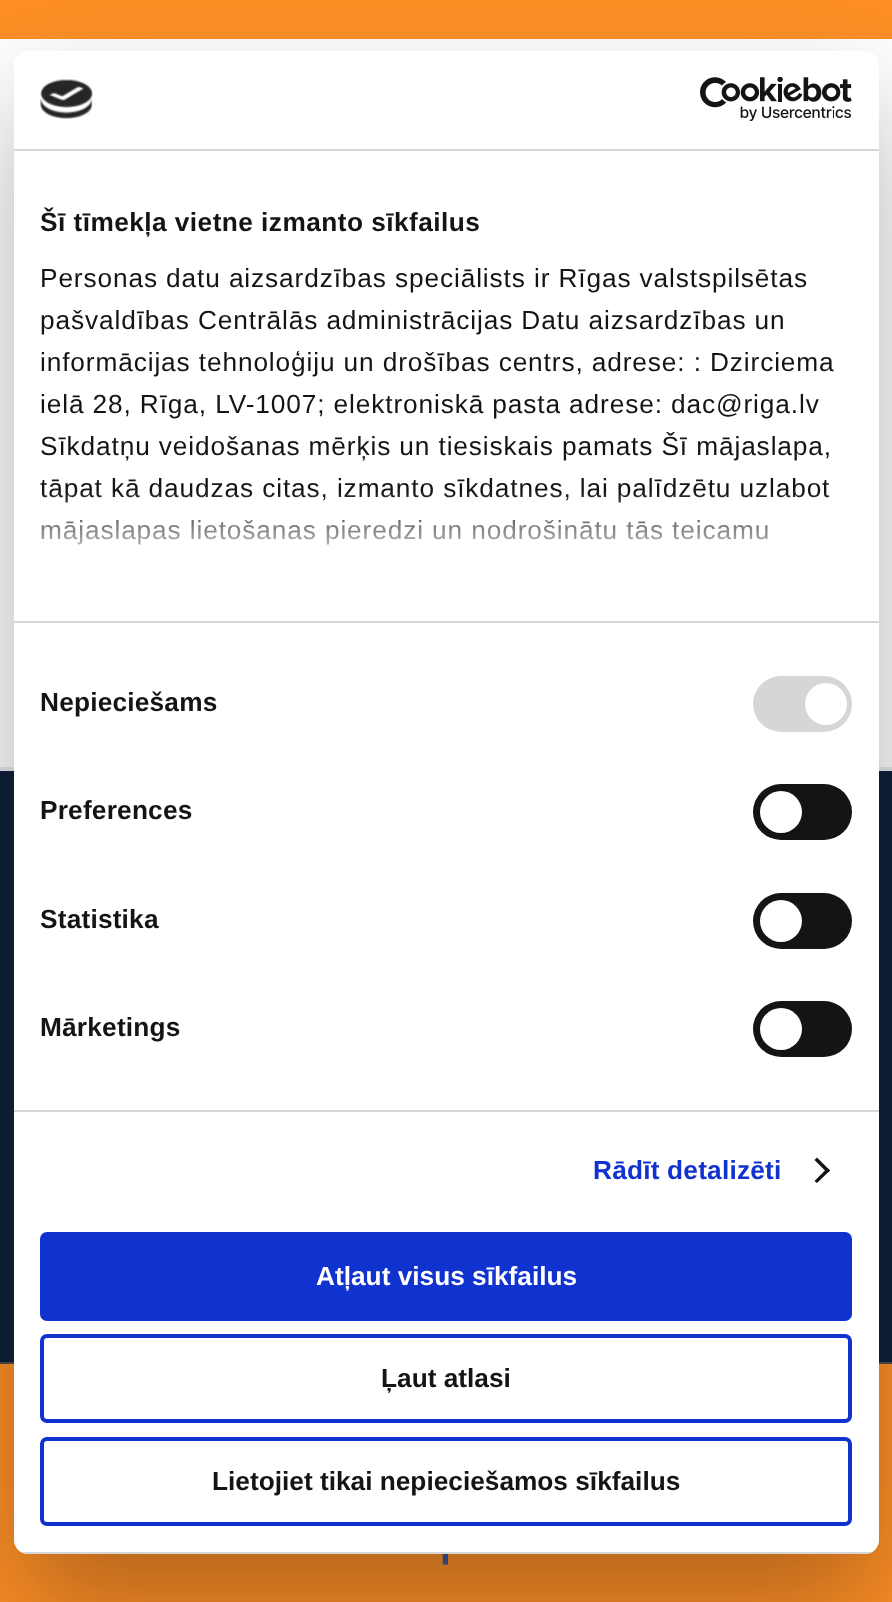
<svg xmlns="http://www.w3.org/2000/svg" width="892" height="1602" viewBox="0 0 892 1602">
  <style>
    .t1 { font: bold 26.25px Liberation Sans; letter-spacing: 0.45px; fill: #141414; }
    .t2 { font: 26.25px Liberation Sans; letter-spacing: 0.88px; fill: #141414; }
    .t3 { font: bold 26.25px Liberation Sans; letter-spacing: 0.2px; fill: #141414; }
    .t4 { font: bold 26.25px Liberation Sans; letter-spacing: 0.2px; fill: #1032cf; }
    .t5 { font: bold 26.25px Liberation Sans; fill: #fff; }
    .t6 { font: bold 26.25px Liberation Sans; fill: #141414; }
  </style>
  <defs>
    <linearGradient id="g1" gradientUnits="userSpaceOnUse" x1="435" y1="621" x2="435" y2="490"><stop offset="0" stop-color="#fff"/><stop offset="0.5" stop-color="#fff" stop-opacity="0.8"/><stop offset="1" stop-color="#fff" stop-opacity="0"/></linearGradient>
    <clipPath id="clip1"><rect x="14" y="51" width="865" height="1503" rx="14"/></clipPath>
  </defs>
  <rect width="100%" height="100%" fill="#ff9027"/>
  <rect x="0" y="39" width="892" height="1" fill="#fffcfc"/>
  <rect x="0" y="40" width="892" height="727" fill="#fff"/>
  <rect x="0" y="771" width="892" height="591" fill="#11213b"/>
  <rect x="0" y="767" width="892" height="4" fill="#e9eaee"/>
  <rect x="0" y="1362" width="892" height="2" fill="#4b4c4d"/>
  <image x="442" y="1554" width="6" height="11" href="images/1.png"/>
  <rect x="14" y="107" width="865" height="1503" rx="14" fill="#0000004d" filter="blur(59.5px)"/>
  <rect x="14" y="51" width="865" height="1503" rx="14" fill="#fff"/>
  <rect x="14" y="149" width="865" height="2" fill="#d6d6d6"/>
  <image x="40" y="79" width="53" height="40" href="images/2.png"/>
  <image x="700" y="77" width="152" height="44" href="images/3.png"/>
  <rect x="14" y="621" width="865" height="2" fill="#d6d6d6"/>
  <text x="40" y="231" class="t1">Šī tīmekļa vietne izmanto sīkfailus</text>
  <text x="40" y="287" class="t2">Personas datu aizsardzības speciālists ir Rīgas valstspilsētas</text>
  <text x="40" y="329" class="t2">pašvaldības Centrālās administrācijas Datu aizsardzības un</text>
  <text x="40" y="371" class="t2">informācijas tehnoloģiju un drošības centrs, adrese: : Dzirciema</text>
  <text x="40" y="413" class="t2">ielā 28, Rīga, LV-1007; elektroniskā pasta adrese: dac@riga.lv</text>
  <text x="40" y="455" class="t2">Sīkdatņu veidošanas mērķis un tiesiskais pamats Šī mājaslapa,</text>
  <text x="40" y="497" class="t2">tāpat kā daudzas citas, izmanto sīkdatnes, lai palīdzētu uzlabot</text>
  <text x="40" y="539" class="t2">mājaslapas lietošanas pieredzi un nodrošinātu tās teicamu</text>
  <rect x="42" y="492" width="788" height="53" fill="url(#g1)"/>
  <rect x="14" y="1110" width="865" height="2" fill="#d6d6d6"/>
  <text x="40" y="711" class="t3">Nepieciešams</text>
  <rect x="753" y="676" width="99" height="56" rx="28" fill="#d6d6d6"/>
  <circle cx="826" cy="704" r="21" fill="#fff"/>
  <text x="40" y="819" class="t3">Preferences</text>
  <rect x="753" y="784" width="99" height="56" rx="28" fill="#141414"/>
  <circle cx="781" cy="812" r="21" fill="#fff"/>
  <text x="40" y="928" class="t3">Statistika</text>
  <rect x="753" y="893" width="99" height="56" rx="28" fill="#141414"/>
  <circle cx="781" cy="921" r="21" fill="#fff"/>
  <text x="40" y="1036" class="t3">Mārketings</text>
  <rect x="753" y="1001" width="99" height="56" rx="28" fill="#141414"/>
  <circle cx="781" cy="1029" r="21" fill="#fff"/>
  <text x="593" y="1179" class="t4">Rādīt detalizēti</text>
  <path d="M817 1157.5L830 1170.5L827.5 1173L814.5 1160Z" fill="#141414"/>
  <path d="M827.5 1168L830 1170.5L817 1183L814.5 1181Z" fill="#141414"/>
  <g clip-path="url(#clip1)">
    <rect x="14" y="1552" width="865" height="2" fill="#d6d6d6"/>
  </g>
  <rect x="42" y="1234" width="808" height="85" rx="5" fill="#1032cf" stroke="#1032cf" stroke-width="4"/>
  <text x="316" y="1285" class="t5">Atļaut visus sīkfailus</text>
  <rect x="42" y="1336" width="808" height="85" rx="5" fill="none" stroke="#1032cf" stroke-width="4"/>
  <text x="381" y="1387" class="t6">Ļaut atlasi</text>
  <rect x="42" y="1439" width="808" height="85" rx="5" fill="none" stroke="#1032cf" stroke-width="4"/>
  <text x="212" y="1490" class="t6">Lietojiet tikai nepieciešamos sīkfailus</text>
</svg>
